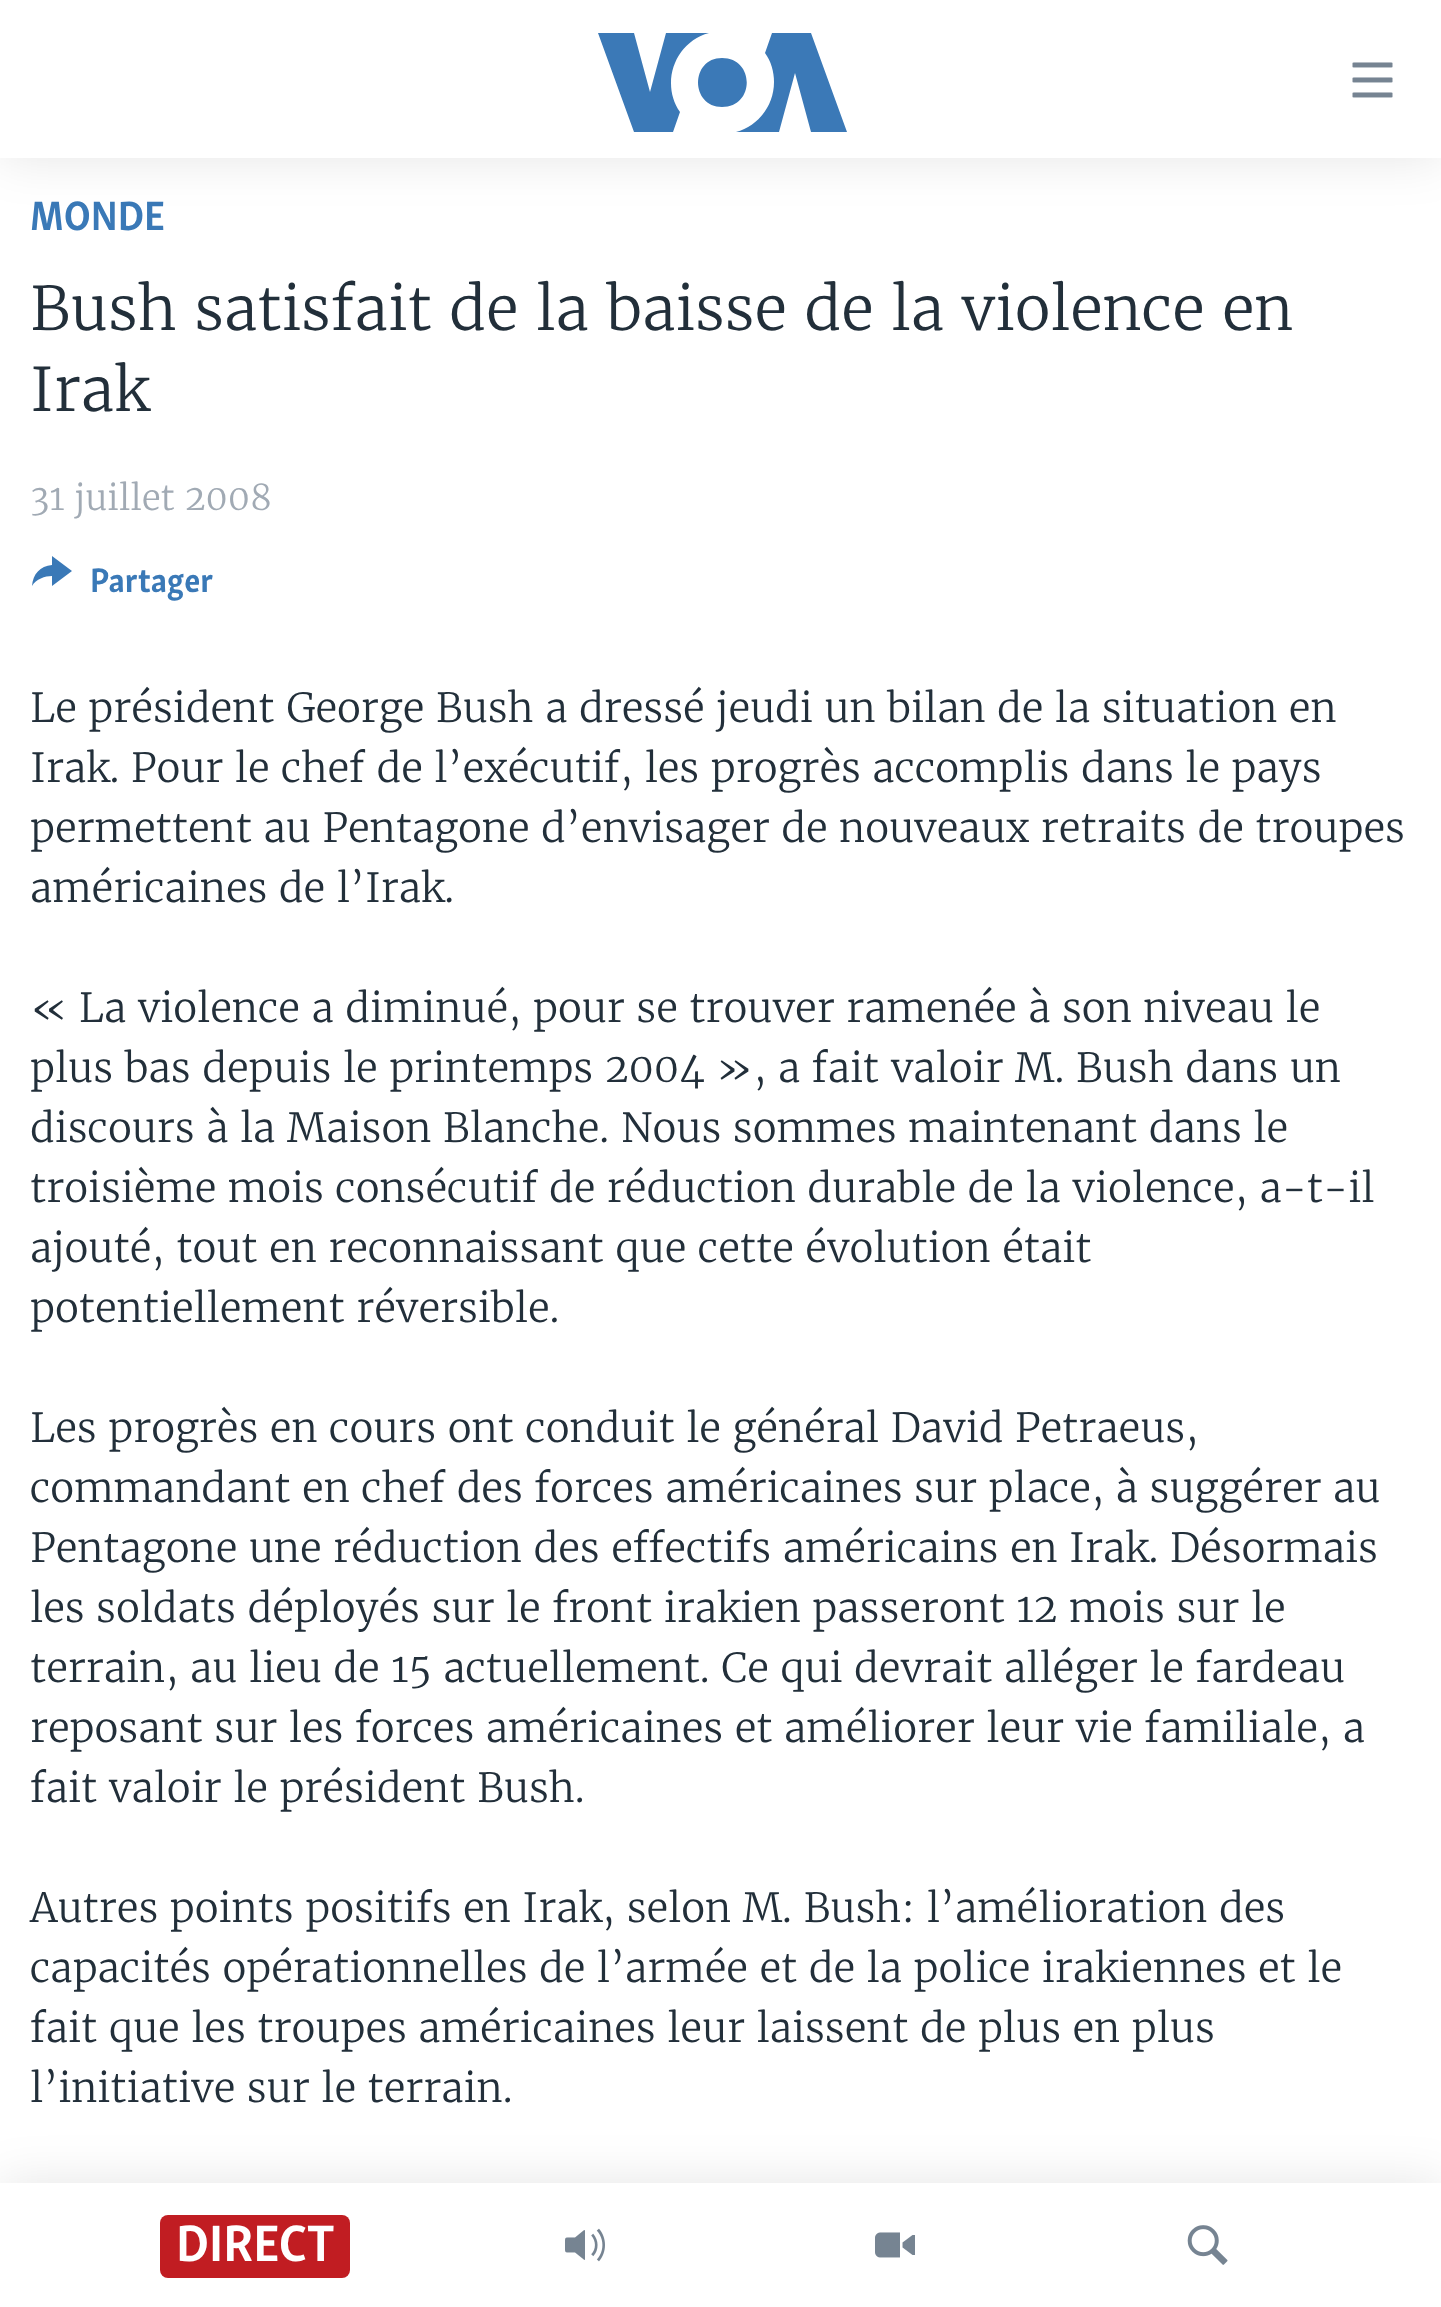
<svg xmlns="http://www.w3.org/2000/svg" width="1441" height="2307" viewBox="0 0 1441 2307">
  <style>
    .t1 { font: bold 42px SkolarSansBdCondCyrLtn; fill: #3a79b7; }
    .t2 { font: 300 60px Merriweather; fill: #222f3a; }
    .t3 { font: 300 35px Merriweather; fill: #a1aab4; }
    .t4 { font: bold 35px SkolarSansBdCondCyrLtn; fill: #3a79b7; }
    .t5 { font: 300 40px Merriweather; fill: #222f3a; }
    .t6 { font: bold 52.5px SkolarSansBdCondCyrLtn; fill: #fff; }
  </style>
  <rect width="100%" height="100%" fill="#fff"/>
  <text x="30" y="230" class="t1">MONDE</text>
  <text x="30" y="330" class="t2">Bush satisfait de la baisse de la violence en</text>
  <text x="30" y="411" class="t2">Irak</text>
  <text x="30" y="510" class="t3">31 juillet 2008</text>
  <path d="M32 586C33 574 40 566 52 565V556L72 571L52 586V576C45 576 36 579 32 586Z" fill="#3a79b7"/>
  <text x="90" y="592" class="t4">Partager</text>
  <text x="30" y="722" class="t5">Le président George Bush a dressé jeudi un bilan de la situation en</text>
  <text x="30" y="782" class="t5">Irak. Pour le chef de l’exécutif, les progrès accomplis dans le pays</text>
  <text x="30" y="842" class="t5">permettent au Pentagone d’envisager de nouveaux retraits de troupes</text>
  <text x="30" y="902" class="t5">américaines de l’Irak.</text>
  <text x="30" y="1022" class="t5">« La violence a diminué, pour se trouver ramenée à son niveau le</text>
  <text x="30" y="1082" class="t5">plus bas depuis le printemps 2004 », a fait valoir M. Bush dans un</text>
  <text x="30" y="1142" class="t5">discours à la Maison Blanche. Nous sommes maintenant dans le</text>
  <text x="30" y="1202" class="t5">troisième mois consécutif de réduction durable de la violence, a-t-il</text>
  <text x="30" y="1262" class="t5">ajouté, tout en reconnaissant que cette évolution était</text>
  <text x="30" y="1322" class="t5">potentiellement réversible.</text>
  <text x="30" y="1442" class="t5">Les progrès en cours ont conduit le général David Petraeus,</text>
  <text x="30" y="1502" class="t5">commandant en chef des forces américaines sur place, à suggérer au</text>
  <text x="30" y="1562" class="t5">Pentagone une réduction des effectifs américains en Irak. Désormais</text>
  <text x="30" y="1622" class="t5">les soldats déployés sur le front irakien passeront 12 mois sur le</text>
  <text x="30" y="1682" class="t5">terrain, au lieu de 15 actuellement. Ce qui devrait alléger le fardeau</text>
  <text x="30" y="1742" class="t5">reposant sur les forces américaines et améliorer leur vie familiale, a</text>
  <text x="30" y="1802" class="t5">fait valoir le président Bush.</text>
  <text x="30" y="1922" class="t5">Autres points positifs en Irak, selon M. Bush: l’amélioration des</text>
  <text x="30" y="1982" class="t5">capacités opérationnelles de l’armée et de la police irakiennes et le</text>
  <text x="30" y="2042" class="t5">fait que les troupes américaines leur laissent de plus en plus</text>
  <text x="30" y="2102" class="t5">l’initiative sur le terrain.</text>
  <rect x="0" y="0" width="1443" height="158" fill="#0000001a" filter="blur(25px)"/>
  <rect x="0" y="0" width="1441" height="158" fill="#fff"/>
  <path d="M680 112L673 132H634L598 33H634L650 92L666 33H709C675 42 660 83 680 112ZM722 58C690 58 690 107 722 107C755 107 755 58 722 58ZM774 82C774 106 758 126 736 132H779L795 73L811 132H847L811 33H772L765 53C771 61 774 72 774 82Z" fill="#3b79b7"/>
  <image x="1352" y="62" width="41" height="36" href="images/1.png"/>
  <rect x="0" y="2183" width="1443" height="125" fill="#0000001a" filter="blur(25px)"/>
  <rect x="0" y="2183" width="1441" height="124" fill="#fff"/>
  <rect x="160" y="2215" width="190" height="63" rx="8" fill="#c11d22"/>
  <text x="176" y="2261" class="t6">DIRECT</text>
  <image x="565" y="2228" width="40" height="34" href="images/2.png"/>
  <image x="875" y="2232" width="40" height="26" href="images/3.png"/>
  <image x="1187" y="2225" width="41" height="40" href="images/4.png"/>
</svg>
